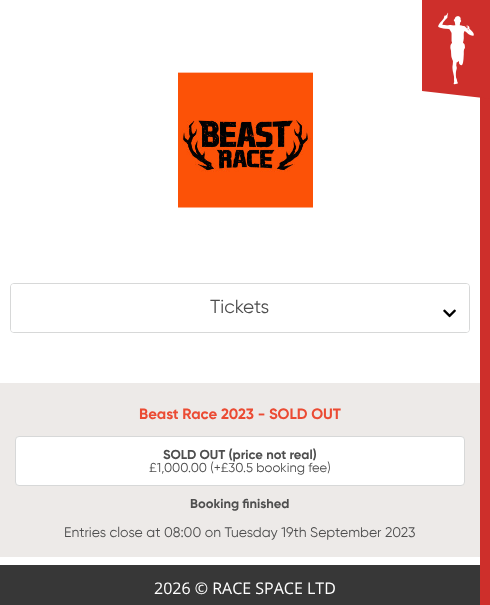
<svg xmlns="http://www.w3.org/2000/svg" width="490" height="605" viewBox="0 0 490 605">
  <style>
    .t1 { font: 19px Gilroy; fill: #4e4e4e; }
    .t2 { font: bold 15px Gilroy; fill: #eb4b33; }
    .t3 { font: bold 13px Gilroy; fill: #4e4e4e; }
    .t4 { font: 13px Gilroy; fill: #4e4e4e; }
    .t5 { font: 14px Gilroy; fill: #4e4e4e; }
    .t6 { font: 16px Open Sans; fill: #fff; }
  </style>
  <rect width="100%" height="100%" fill="#fff"/>
  <image x="178" y="72" width="135" height="136" href="images/1.png"/>
  <rect x="10.5" y="283.5" width="459" height="49" rx="3.5" fill="none" stroke="#d7d8d8"/>
  <rect x="11" y="284" width="458" height="48" rx="3" fill="#fff"/>
  <text x="210" y="313" class="t1">Tickets</text>
  <image x="443" y="309" width="13" height="9" href="images/2.png"/>
  <rect x="0" y="383" width="480" height="174" fill="#edeae8"/>
  <text x="139" y="419" class="t2">Beast Race 2023 - SOLD OUT</text>
  <rect x="15.5" y="436.5" width="449" height="49" rx="3.5" fill="#fff" stroke="#d7d8d8"/>
  <text x="163" y="459" class="t3">SOLD OUT (price not real)</text>
  <text x="149" y="472" class="t4">£1,000.00 (+£30.5 booking fee)</text>
  <text x="190" y="508" class="t3">Booking finished</text>
  <text x="64" y="537" class="t5">Entries close at 08:00 on Tuesday 19th September 2023</text>
  <rect x="480" y="97" width="10" height="508" fill="#ce2f2b"/>
  <path d="M422 0V91L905 146V0Z" fill="#ce2f2b"/>
  <image x="438" y="12" width="36" height="73" href="images/3.png"/>
  <rect x="0" y="565" width="480" height="40" fill="#373737"/>
  <text x="154" y="594" class="t6">2026 © RACE SPACE LTD</text>
</svg>
